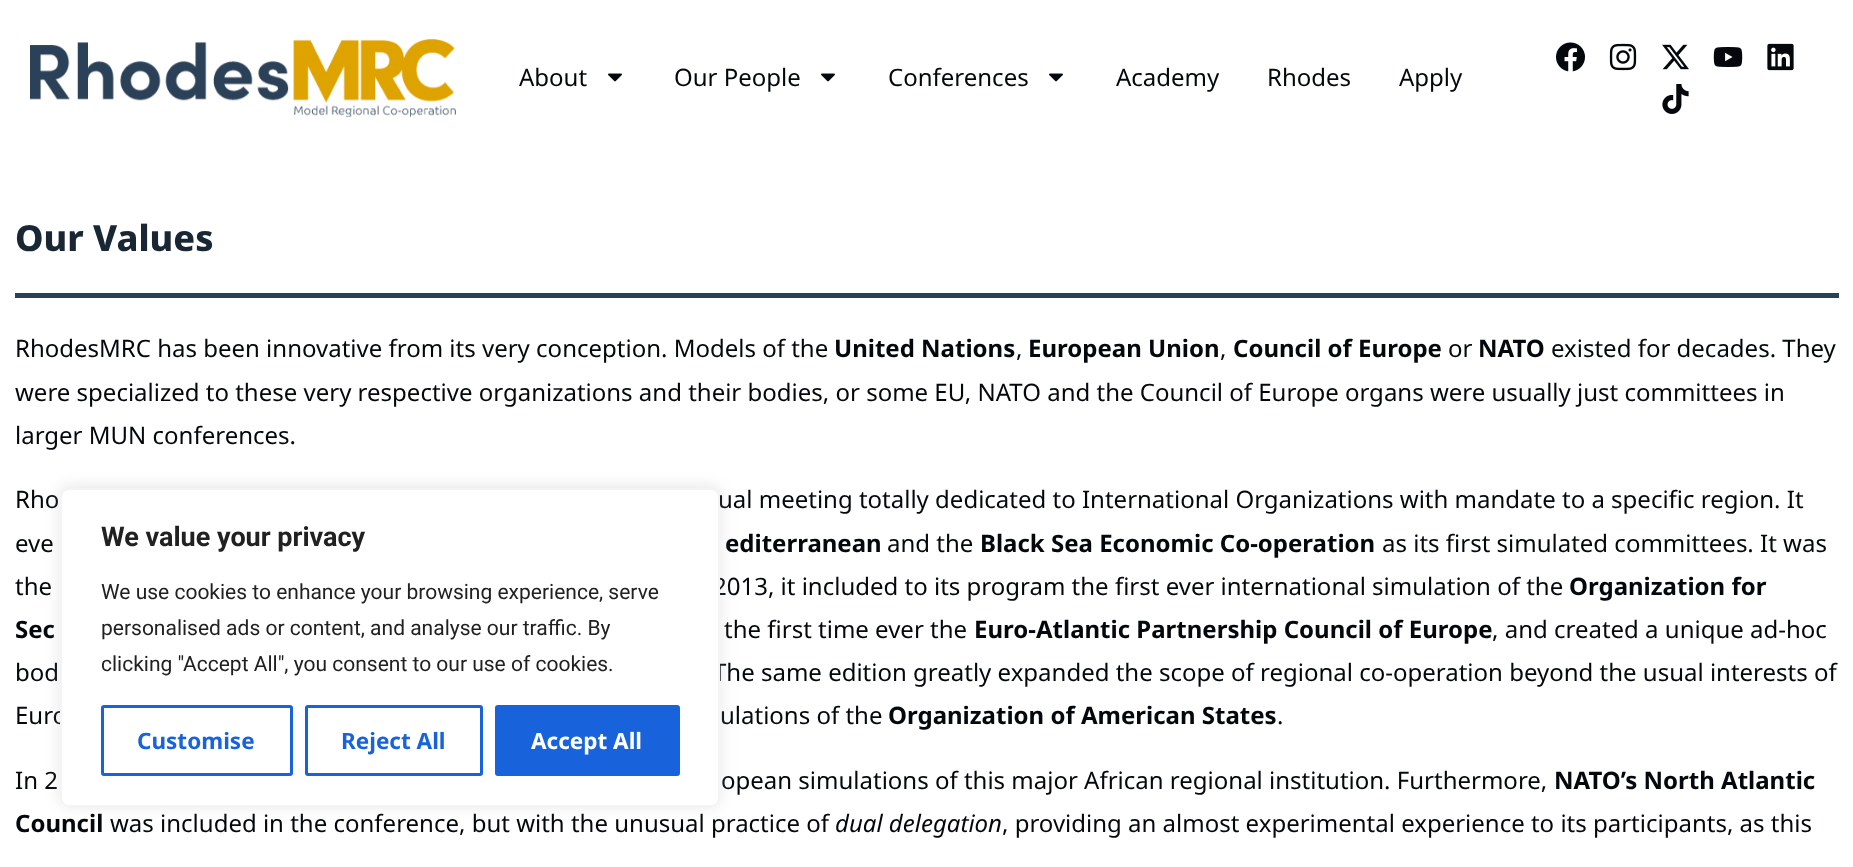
<svg xmlns="http://www.w3.org/2000/svg" width="1853" height="867" viewBox="0 0 1853 867">
  <style>
    .t1 { font: 24px Noto Sans; fill: #04080c; }
    .t2 { font: 800 36px Noto Sans; fill: #192735; }
    .t3 { font: bold 24px Noto Sans; fill: #04080c; }
    .t4 { font: italic 24px Noto Sans; fill: #04080c; }
    .t5 { font: bold 27px Roboto; fill: #212121; }
    .t6 { font: 21px Roboto; fill: #212121; }
    .t7 { font: bold 22.5px Noto Sans; fill: #1863dc; }
    .t8 { font: bold 22.5px Noto Sans; fill: #fff; }
  </style>
  <rect width="100%" height="100%" fill="#fff"/>
  <image x="30" y="39" width="426" height="78" href="images/1.png"/>
  <text x="519" y="86" class="t1">About</text>
  <image x="608" y="73" width="14" height="9" href="images/2.png"/>
  <text x="674" y="86" class="t1">Our People</text>
  <image x="821" y="73" width="14" height="9" href="images/2.png"/>
  <text x="888" y="86" class="t1">Conferences</text>
  <image x="1049" y="73" width="14" height="9" href="images/2.png"/>
  <text x="1116" y="86" class="t1">Academy</text>
  <text x="1267" y="86" class="t1">Rhodes</text>
  <text x="1399" y="86" class="t1">Apply</text>
  <image x="1556" y="42" width="29" height="30" href="images/3.png"/>
  <image x="1609" y="43" width="28" height="28" href="images/4.png"/>
  <image x="1662" y="44" width="27" height="26" href="images/5.png"/>
  <image x="1713" y="47" width="30" height="20" href="images/6.png"/>
  <image x="1767" y="43" width="27" height="28" href="images/7.png"/>
  <image x="1662" y="84" width="27" height="30" href="images/8.png"/>
  <rect x="15" y="293" width="1824" height="5" fill="#2b4158"/>
  <text x="15" y="251" class="t2">Our Values</text>
  <text x="15" y="357" class="t1">RhodesMRC has been innovative from its very conception. Models of the</text>
  <text x="834" y="357" class="t3">United Nations</text>
  <text x="1016" y="357" class="t1">,</text>
  <text x="1028" y="357" class="t3">European Union</text>
  <text x="1220" y="357" class="t1">,</text>
  <text x="1233" y="357" class="t3">Council of Europe</text>
  <text x="1448" y="357" class="t1">or</text>
  <text x="1478" y="357" class="t3">NATO</text>
  <text x="1551" y="357" class="t1">existed for decades. They</text>
  <text x="15" y="401" class="t1">were specialized to these very respective organizations and their bodies, or some EU, NATO and the Council of Europe organs were usually just committees in</text>
  <text x="15" y="444" class="t1">larger MUN conferences.</text>
  <text x="15" y="508" class="t1">Rho</text>
  <text x="718" y="508" class="t1">ual meeting totally dedicated to International Organizations with mandate to a specific region. It</text>
  <text x="15" y="552" class="t1">eve</text>
  <text x="725" y="552" class="t3">editerranean</text>
  <text x="887" y="552" class="t1">and the</text>
  <text x="980" y="552" class="t3">Black Sea Economic Co-operation</text>
  <text x="1382" y="552" class="t1">as its first simulated committees. It was</text>
  <text x="15" y="595" class="t1">the</text>
  <text x="713" y="595" class="t1">2013, it included to its program the first ever international simulation of the</text>
  <text x="1569" y="595" class="t3">Organization for</text>
  <text x="15" y="638" class="t3">Sec</text>
  <text x="724" y="638" class="t1">the first time ever the</text>
  <text x="974" y="638" class="t3">Euro-Atlantic Partnership Council of Europe</text>
  <text x="1492" y="638" class="t1">, and created a unique ad-hoc</text>
  <text x="15" y="681" class="t1">bod</text>
  <text x="713" y="681" class="t1">The same edition greatly expanded the scope of regional co-operation beyond the usual interests of</text>
  <text x="15" y="724" class="t1">Euro</text>
  <text x="720" y="724" class="t1">ulations of the</text>
  <text x="888" y="724" class="t3">Organization of American States</text>
  <text x="1277" y="724" class="t1">.</text>
  <text x="15" y="789" class="t1">In 2</text>
  <text x="721" y="789" class="t1">opean simulations of this major African regional institution. Furthermore,</text>
  <text x="1554" y="789" class="t3">NATO’s North Atlantic</text>
  <text x="15" y="832" class="t3">Council</text>
  <text x="110" y="832" class="t1">was included in the conference, but with the unusual practice of</text>
  <text x="835" y="832" class="t4">dual delegation</text>
  <text x="1002" y="832" class="t1">, providing an almost experimental experience to its participants, as this</text>
  <rect x="60" y="486" width="660" height="320" rx="9" fill="#acabab4d" filter="blur(7.5px)"/>
  <rect x="61" y="489" width="658" height="317" rx="8" fill="#fff" stroke="#f4f4f4" stroke-width="2"/>
  <text x="101" y="546" class="t5">We value your privacy</text>
  <text x="101" y="599" class="t6">We use cookies to enhance your browsing experience, serve</text>
  <text x="101" y="635" class="t6">personalised ads or content, and analyse our traffic. By</text>
  <text x="101" y="671" class="t6">clicking "Accept All", you consent to our use of cookies.</text>
  <rect x="102.5" y="706.5" width="189" height="68" rx="1.5" fill="none" stroke="#1863dc" stroke-width="3"/>
  <text x="137" y="749" class="t7">Customise</text>
  <rect x="306.5" y="706.5" width="175" height="68" rx="1.5" fill="none" stroke="#1863dc" stroke-width="3"/>
  <text x="341" y="749" class="t7">Reject All</text>
  <rect x="496.5" y="706.5" width="182" height="68" rx="1.5" fill="#1863dc" stroke="#1863dc" stroke-width="3"/>
  <text x="531" y="749" class="t8">Accept All</text>
</svg>
